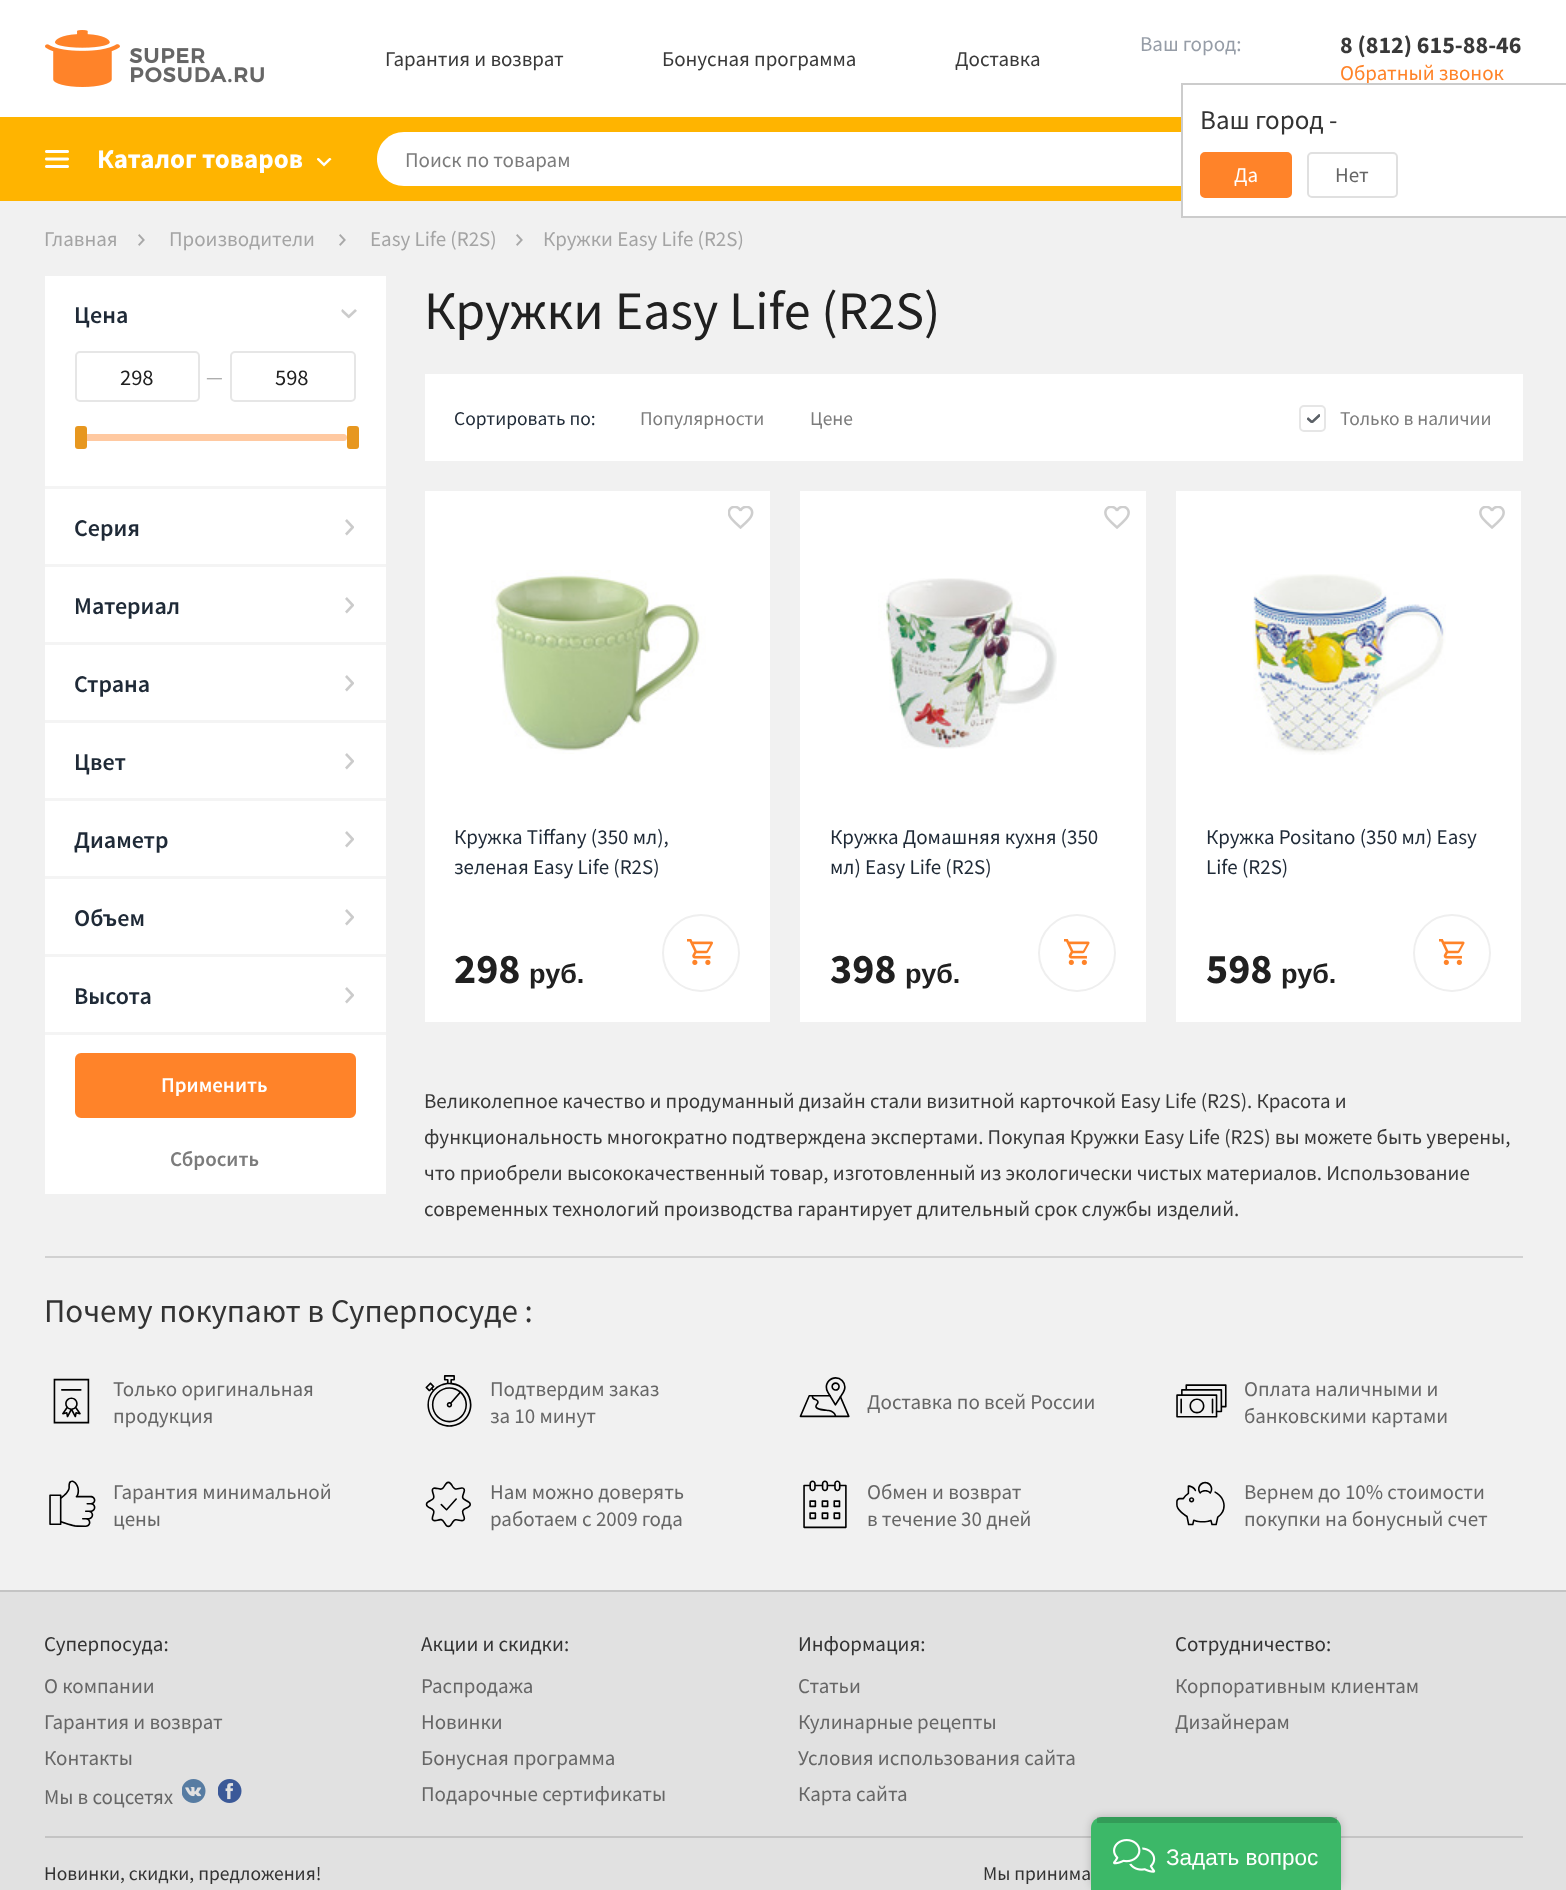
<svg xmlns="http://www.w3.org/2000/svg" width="1566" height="1890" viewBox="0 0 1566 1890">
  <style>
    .t1 { font: bold 27px Source Sans Pro; fill: #fff; }
    .t2 { font: 21px Source Sans Pro; fill: #7c7c7c; }
    .t3 { font: 21px Source Sans Pro; fill: #393939; }
    .t4 { font: 21px Source Sans Pro; fill: #969da7; }
    .t5 { font: 21px Source Sans Pro; fill: #ff8328; }
    .t6 { font: 27px Source Sans Pro; fill: #333; }
    .t7 { font: 21px Source Sans Pro; fill: #fff; }
    .t8 { font: 21px Source Sans Pro; fill: #666; }
    .t9 { font: bold 24px Source Sans Pro; fill: #393939; }
    .t10 { font: 21px Source Sans Pro; fill: #a4a4a4; }
    .t11 { font: 600 24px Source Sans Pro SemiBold; fill: #1f2a37; }
    .t12 { font: 22.5px Source Sans Pro; fill: #202020; }
    .t13 { font: 600 21px Source Sans Pro SemiBold; fill: #fff; }
    .t14 { font: 600 21px Source Sans Pro SemiBold; fill: #7c7c7c; }
    .t15 { font: 54px Source Sans Pro; fill: #202020; }
    .t16 { font: 19.5px Source Sans Pro; fill: #1f2a37; }
    .t17 { font: 19.5px Source Sans Pro; fill: #7c7c7c; }
    .t18 { font: 21px Source Sans Pro; fill: #1f2a37; }
    .t19 { font: bold 42px Source Sans Pro; fill: #202020; }
    .t20 { font: bold 27px Liberation Sans; fill: #202020; }
    .t21 { font: 33px Source Sans Pro; fill: #333; }
    .t22 { font: 21px Source Sans Pro; fill: #333; }
    .t23 { font: 19.5px Source Sans Pro; fill: #333; }
    .t24 { font: 22.5px Liberation Sans; fill: #fff; }
  </style>
  <rect width="100%" height="100%" fill="#f1f1f1"/>
  <rect x="0" y="117" width="1181" height="84" fill="#ffb400"/>
  <image x="45" y="150" width="24" height="18" href="images/1.png"/>
  <text x="97" y="168" class="t1">Каталог товаров</text>
  <image x="317" y="158" width="15" height="9" href="images/2.png"/>
  <path d="M404 132H1191V186H404C389 186 377 174 377 159C377 144 389 132 404 132Z" fill="#fff"/>
  <text x="405" y="167" class="t2">Поиск по товарам</text>
  <rect x="0" y="0" width="1566" height="117" fill="#fff"/>
  <image x="45" y="30" width="219" height="57" href="images/3.png"/>
  <text x="385" y="66" class="t3">Гарантия и возврат</text>
  <text x="662" y="66" class="t3">Бонусная программа</text>
  <text x="955" y="66" class="t3">Доставка</text>
  <text x="1140" y="51" class="t4">Ваш город:</text>
  <rect x="1183" y="117" width="383" height="99" fill="#fff"/>
  <text x="1340" y="80" class="t5">Обратный звонок</text>
  <rect x="1182" y="84" width="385" height="133" fill="none" stroke="#ccc" stroke-width="2"/>
  <text x="1200" y="129" class="t6">Ваш город -</text>
  <rect x="1201" y="153" width="90" height="44" rx="4" fill="#ff8329" stroke="#ff8329" stroke-width="2"/>
  <text x="1234" y="182" class="t7">Да</text>
  <rect x="1308" y="153" width="89" height="44" rx="4" fill="none" stroke="#e0e0e0" stroke-width="2"/>
  <text x="1335" y="182" class="t8">Нет</text>
  <text x="1340" y="53" class="t9">8 (812) 615-88-46</text>
  <text x="44" y="246" class="t10">Главная</text>
  <image x="138" y="234" width="7" height="12" href="images/4.png"/>
  <text x="169" y="246" class="t10">Производители</text>
  <image x="339" y="234" width="7" height="12" href="images/4.png"/>
  <text x="370" y="246" class="t10">Easy Life (R2S)</text>
  <image x="516" y="234" width="7" height="12" href="images/4.png"/>
  <text x="543" y="246" class="t10">Кружки Easy Life (R2S)</text>
  <rect x="45" y="276" width="341" height="918" fill="#fff"/>
  <rect x="45" y="486" width="341" height="3" fill="#f4f4f4"/>
  <text x="74" y="323" class="t11">Цена</text>
  <image x="341" y="309" width="16" height="10" href="images/5.png"/>
  <rect x="76" y="352" width="123" height="49" rx="4" fill="none" stroke="#e6e6e6" stroke-width="2"/>
  <text x="120" y="385" class="t12">298</text>
  <text x="206" y="384" class="t10">—</text>
  <rect x="231" y="352" width="124" height="49" rx="4" fill="none" stroke="#e6e6e6" stroke-width="2"/>
  <text x="275" y="385" class="t12">598</text>
  <rect x="75" y="434" width="272" height="7" rx="3.5" fill="#ffc9a1"/>
  <rect x="75" y="426" width="12" height="23" rx="3" fill="#e7971f"/>
  <rect x="347" y="426" width="12" height="23" rx="3" fill="#e7971f"/>
  <rect x="45" y="564" width="341" height="3" fill="#f4f4f4"/>
  <text x="74" y="536" class="t11">Серия</text>
  <image x="345" y="519" width="9" height="17" href="images/6.png"/>
  <rect x="45" y="642" width="341" height="3" fill="#f4f4f4"/>
  <text x="74" y="614" class="t11">Материал</text>
  <image x="345" y="597" width="9" height="17" href="images/6.png"/>
  <rect x="45" y="720" width="341" height="3" fill="#f4f4f4"/>
  <text x="74" y="692" class="t11">Страна</text>
  <image x="345" y="675" width="9" height="17" href="images/6.png"/>
  <rect x="45" y="798" width="341" height="3" fill="#f4f4f4"/>
  <text x="74" y="770" class="t11">Цвет</text>
  <image x="345" y="753" width="9" height="17" href="images/6.png"/>
  <rect x="45" y="876" width="341" height="3" fill="#f4f4f4"/>
  <text x="74" y="848" class="t11">Диаметр</text>
  <image x="345" y="831" width="9" height="17" href="images/6.png"/>
  <rect x="45" y="954" width="341" height="3" fill="#f4f4f4"/>
  <text x="74" y="926" class="t11">Объем</text>
  <image x="345" y="909" width="9" height="17" href="images/6.png"/>
  <rect x="45" y="1032" width="341" height="3" fill="#f4f4f4"/>
  <text x="74" y="1004" class="t11">Высота</text>
  <image x="345" y="987" width="9" height="17" href="images/6.png"/>
  <rect x="76" y="1054" width="279" height="63" rx="5" fill="#ff8329" stroke="#ff8329" stroke-width="2"/>
  <text x="161" y="1092" class="t13">Применить</text>
  <text x="170" y="1166" class="t14">Сбросить</text>
  <text x="424" y="329" class="t15">Кружки Easy Life (R2S)</text>
  <rect x="425" y="374" width="1098" height="87" fill="#fff"/>
  <text x="454" y="425" class="t16">Сортировать по:</text>
  <text x="640" y="425" class="t17">Популярности</text>
  <text x="810" y="425" class="t17">Цене</text>
  <rect x="1300" y="406" width="25" height="25" rx="4" fill="none" stroke="#e6e6e6" stroke-width="2"/>
  <text x="1340" y="425" class="t17">Только в наличии</text>
  <image x="1307" y="414" width="13" height="9" href="images/7.png"/>
  <rect x="425" y="491" width="345" height="531" fill="#fff"/>
  <image x="491" y="570" width="215" height="184" href="images/8.png"/>
  <text x="454" y="844" class="t18">Кружка Tiffany (350 мл),</text>
  <text x="454" y="874" class="t18">зеленая Easy Life (R2S)</text>
  <image x="728" y="506" width="26" height="23" href="images/9.png"/>
  <text x="454" y="983" class="t19">298</text>
  <text x="529" y="983" class="t20">руб.</text>
  <circle cx="701" cy="953" r="38" fill="none" stroke="#efefef" stroke-width="2"/>
  <image x="687" y="939" width="26" height="26" href="images/10.png"/>
  <rect x="800" y="491" width="346" height="531" fill="#fff"/>
  <image x="878" y="578" width="179" height="171" href="images/11.png"/>
  <text x="830" y="844" class="t18">Кружка Домашняя кухня (350</text>
  <text x="830" y="874" class="t18">мл) Easy Life (R2S)</text>
  <image x="1104" y="506" width="26" height="23" href="images/12.png"/>
  <text x="830" y="983" class="t19">398</text>
  <text x="905" y="983" class="t20">руб.</text>
  <circle cx="1077" cy="953" r="38" fill="none" stroke="#efefef" stroke-width="2"/>
  <image x="1064" y="939" width="26" height="26" href="images/13.png"/>
  <rect x="1176" y="491" width="345" height="531" fill="#fff"/>
  <image x="1253" y="574" width="193" height="181" href="images/14.png"/>
  <text x="1206" y="844" class="t18">Кружка Positano (350 мл) Easy</text>
  <text x="1206" y="874" class="t18">Life (R2S)</text>
  <image x="1479" y="506" width="26" height="23" href="images/12.png"/>
  <text x="1206" y="983" class="t19">598</text>
  <text x="1281" y="983" class="t20">руб.</text>
  <circle cx="1452" cy="953" r="38" fill="none" stroke="#efefef" stroke-width="2"/>
  <image x="1439" y="939" width="26" height="26" href="images/13.png"/>
  <text x="424" y="1108" class="t3">Великолепное качество и продуманный дизайн стали визитной карточкой Easy Life (R2S). Красота и</text>
  <text x="424" y="1144" class="t3">функциональность многократно подтверждена экспертами. Покупая Кружки Easy Life (R2S) вы можете быть уверены,</text>
  <text x="424" y="1180" class="t3">что приобрели высококачественный товар, изготовленный из экологически чистых материалов. Использование</text>
  <text x="424" y="1216" class="t3">современных технологий производства гарантирует длительный срок службы изделий.</text>
  <rect x="45" y="1256" width="1478" height="2" fill="#d1d1d1"/>
  <text x="44" y="1322" class="t21">Почему покупают в Суперпосуде :</text>
  <image x="53" y="1378" width="37" height="46" href="images/15.png"/>
  <text x="113" y="1396" class="t8">Только оригинальная</text>
  <text x="113" y="1423" class="t8">продукция</text>
  <image x="49" y="1480" width="47" height="47" href="images/16.png"/>
  <text x="113" y="1499" class="t8">Гарантия минимальной</text>
  <text x="113" y="1526" class="t8">цены</text>
  <image x="425" y="1375" width="47" height="52" href="images/17.png"/>
  <text x="490" y="1396" class="t8">Подтвердим заказ</text>
  <text x="490" y="1423" class="t8">за 10 минут</text>
  <image x="425" y="1481" width="46" height="47" href="images/18.png"/>
  <text x="490" y="1499" class="t8">Нам можно доверять</text>
  <text x="490" y="1526" class="t8">работаем с 2009 года</text>
  <image x="799" y="1377" width="51" height="41" href="images/19.png"/>
  <text x="867" y="1409" class="t8">Доставка по всей России</text>
  <image x="803" y="1480" width="44" height="49" href="images/20.png"/>
  <text x="867" y="1499" class="t8">Обмен и возврат</text>
  <text x="867" y="1526" class="t8">в течение 30 дней</text>
  <image x="1176" y="1384" width="51" height="34" href="images/21.png"/>
  <text x="1244" y="1396" class="t8">Оплата наличными и</text>
  <text x="1244" y="1423" class="t8">банковскими картами</text>
  <image x="1176" y="1481" width="49" height="45" href="images/22.png"/>
  <text x="1244" y="1499" class="t8">Вернем до 10% стоимости</text>
  <text x="1244" y="1526" class="t8">покупки на бонусный счет</text>
  <rect x="0" y="1592" width="1566" height="298" fill="#e1e1e1"/>
  <rect x="0" y="1590" width="1566" height="2" fill="#c4c4c4"/>
  <text x="44" y="1651" class="t22">Суперпосуда:</text>
  <text x="44" y="1693" class="t8">О компании</text>
  <text x="44" y="1729" class="t8">Гарантия и возврат</text>
  <text x="44" y="1765" class="t8">Контакты</text>
  <text x="44" y="1804" class="t8">Мы в соцсетях</text>
  <image x="182" y="1779" width="24" height="24" href="images/23.png"/>
  <image x="218" y="1779" width="24" height="24" href="images/24.png"/>
  <text x="421" y="1651" class="t22">Акции и скидки:</text>
  <text x="421" y="1693" class="t8">Распродажа</text>
  <text x="421" y="1729" class="t8">Новинки</text>
  <text x="421" y="1765" class="t8">Бонусная программа</text>
  <text x="421" y="1801" class="t8">Подарочные сертификаты</text>
  <text x="798" y="1651" class="t22">Информация:</text>
  <text x="798" y="1693" class="t8">Статьи</text>
  <text x="798" y="1729" class="t8">Кулинарные рецепты</text>
  <text x="798" y="1765" class="t8">Условия использования сайта</text>
  <text x="798" y="1801" class="t8">Карта сайта</text>
  <text x="1175" y="1651" class="t22">Сотрудничество:</text>
  <text x="1175" y="1693" class="t8">Корпоративным клиентам</text>
  <text x="1175" y="1729" class="t8">Дизайнерам</text>
  <rect x="45" y="1836" width="1478" height="2" fill="#c4c4c4"/>
  <text x="44" y="1880" class="t23">Новинки, скидки, предложения!</text>
  <text x="983" y="1880" class="t23">Мы принима</text>
  <rect x="1091" y="1817" width="250" height="73" rx="11" fill="#00000033" filter="blur(4px)"/>
  <path d="M1102 1817H1330C1336 1817 1341 1822 1341 1828V1890H1091V1828C1091 1822 1096 1817 1102 1817Z" fill="#3cb868"/>
  <rect x="1097" y="1817" width="240" height="6" fill="#00000026"/>
  <image x="1113" y="1839" width="43" height="34" href="images/25.png"/>
  <text x="1166" y="1865" class="t24">Задать вопрос</text>
</svg>
